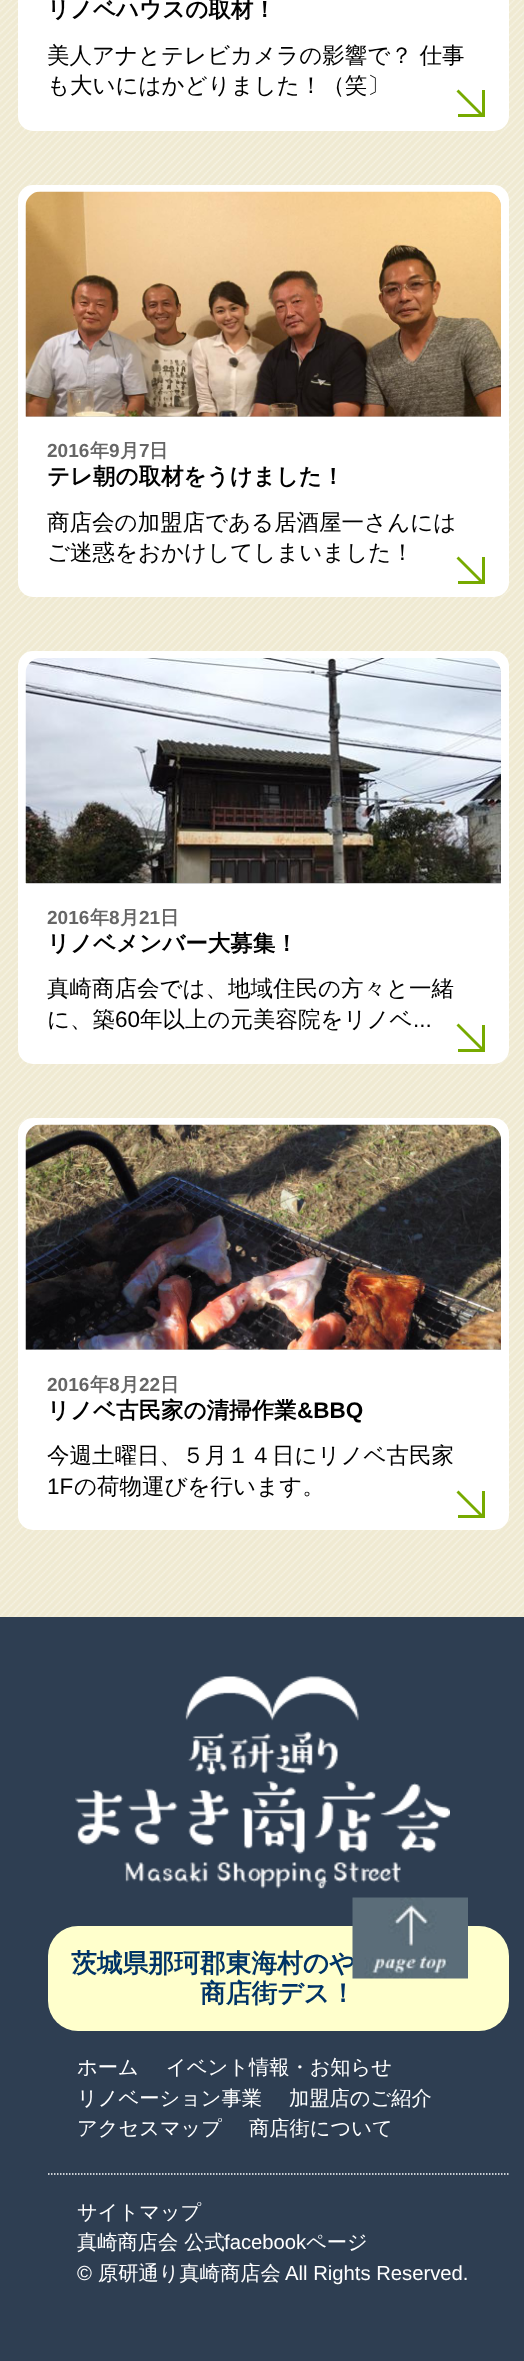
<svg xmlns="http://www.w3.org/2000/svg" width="524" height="2361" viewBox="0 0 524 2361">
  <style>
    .t1 { font: bold 22.5px WenQuanYi Zen Hei; fill: #000; }
    .t2 { font: 500 22.5px WenQuanYi Zen Hei; fill: #000; }
    .t3 { font: bold 19px Liberation Sans; fill: #666; }
    .t4 { font: bold 19px WenQuanYi Zen Hei; fill: #666; }
    .t5 { font: 22.5px Liberation Sans; fill: #000; }
    .t6 { font: bold 22.5px Liberation Sans; fill: #000; }
    .t7 { font: bold 25.75px WenQuanYi Zen Hei; fill: #036; }
    .t8 { font: 500 20.25px WenQuanYi Zen Hei; fill: #fff; }
    .t9 { font: 20.25px Liberation Sans; fill: #fff; }
  </style>
  <rect width="100%" height="100%" fill="#fff"/>
  <image x="0" y="0" width="524" height="1617" href="images/1.png"/>
  <rect x="18" y="-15" width="491" height="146" rx="15" fill="#fff"/>
  <text x="47" y="17" class="t1">リノベハウスの取材！</text>
  <text x="47" y="63" class="t2">美人アナとテレビカメラの影響で？ 仕事</text>
  <text x="47" y="93" class="t2">も大いにはかどりました！（笑〕</text>
  <path d="M458.5 89.5L484 115L482 117L456.5 91.5Z" fill="#7a0"/>
  <rect x="482" y="90" width="3" height="27" fill="#7a0"/>
  <rect x="458" y="114" width="27" height="3" fill="#7a0"/>
  <rect x="18" y="185" width="491" height="412" rx="15" fill="#fff"/>
  <path d="M41 192H486C494.5 192 501 198.5 501 207V417H26V207C26 198.5 32.5 192 41 192Z" fill="#ccc"/>
  <image x="25" y="191" width="476" height="226" href="images/2.png"/>
  <text x="47" y="457" class="t3">2016</text>
  <text x="90" y="457" class="t4">年</text>
  <text x="109" y="457" class="t3">9</text>
  <text x="120" y="457" class="t4">月</text>
  <text x="139" y="457" class="t3">7</text>
  <text x="149" y="457" class="t4">日</text>
  <text x="47" y="484" class="t1">テレ朝の取材をうけました！</text>
  <text x="47" y="530" class="t2">商店会の加盟店である居酒屋一さんには</text>
  <text x="47" y="560" class="t2">ご迷惑をおかけしてしまいました！</text>
  <path d="M458.5 556.5L484 582L482 584L456.5 558.5Z" fill="#7a0"/>
  <rect x="482" y="557" width="3" height="27" fill="#7a0"/>
  <rect x="458" y="581" width="27" height="3" fill="#7a0"/>
  <rect x="18" y="651" width="491" height="413" rx="15" fill="#fff"/>
  <path d="M41 659H486C494.5 659 501 665.5 501 674V884H26V674C26 665.5 32.5 659 41 659Z" fill="#ccc"/>
  <image x="25" y="658" width="476" height="225" href="images/3.png"/>
  <text x="47" y="924" class="t3">2016</text>
  <text x="90" y="924" class="t4">年</text>
  <text x="109" y="924" class="t3">8</text>
  <text x="120" y="924" class="t4">月</text>
  <text x="139" y="924" class="t3">21</text>
  <text x="160" y="924" class="t4">日</text>
  <text x="47" y="951" class="t1">リノベメンバー大募集！</text>
  <text x="47" y="996" class="t2">真崎商店会では、地域住民の方々と一緒</text>
  <text x="47" y="1027" class="t2">に、築</text>
  <text x="115" y="1027" class="t5">60</text>
  <text x="140" y="1027" class="t2">年以上の元美容院をリノベ</text>
  <text x="413" y="1027" class="t5">...</text>
  <path d="M458.5 1023.5L484 1049L482 1051L456.5 1025.5Z" fill="#7a0"/>
  <rect x="482" y="1025" width="3" height="27" fill="#7a0"/>
  <rect x="458" y="1049" width="27" height="3" fill="#7a0"/>
  <rect x="18" y="1118" width="491" height="412" rx="15" fill="#fff"/>
  <path d="M41 1125H486C494.5 1125 501 1131.5 501 1140V1350H26V1140C26 1131.5 32.5 1125 41 1125Z" fill="#ccc"/>
  <image x="25" y="1124" width="476" height="226" href="images/4.png"/>
  <text x="47" y="1391" class="t3">2016</text>
  <text x="90" y="1391" class="t4">年</text>
  <text x="109" y="1391" class="t3">8</text>
  <text x="120" y="1391" class="t4">月</text>
  <text x="139" y="1391" class="t3">22</text>
  <text x="160" y="1391" class="t4">日</text>
  <text x="47" y="1418" class="t1">リノベ古民家の清掃作業</text>
  <text x="297" y="1418" class="t6">&amp;BBQ</text>
  <text x="47" y="1463" class="t2">今週土曜日、５月１４日にリノベ古民家</text>
  <text x="47" y="1494" class="t5">1F</text>
  <text x="74" y="1494" class="t2">の荷物運びを行います。</text>
  <path d="M458.5 1490.5L484 1516L482 1518L456.5 1492.5Z" fill="#7a0"/>
  <rect x="482" y="1491" width="3" height="27" fill="#7a0"/>
  <rect x="458" y="1515" width="27" height="3" fill="#7a0"/>
  <rect x="0" y="1617" width="524" height="744" fill="#2e3e52"/>
  <rect x="48" y="1926" width="461" height="105" rx="30" fill="#ffc"/>
  <text x="71" y="1972" class="t7">茨城県那珂郡東海村のや</text>
  <image x="352" y="1897" width="116" height="82" href="images/5.png"/>
  <image x="75" y="1676" width="375" height="213" href="images/6.png"/>
  <text x="200" y="2002" class="t7">商店街デス！</text>
  <path d="M48 2174H508.5" fill="none" stroke="#fff" stroke-width="1.5" stroke-dasharray="1.5 1.5"/>
  <text x="77" y="2074" class="t8">ホーム</text>
  <text x="166" y="2074" class="t8">イベント情報・お知らせ</text>
  <text x="77" y="2105" class="t8">リノベーション事業</text>
  <text x="289" y="2105" class="t8">加盟店のご紹介</text>
  <text x="77" y="2135" class="t8">アクセスマップ</text>
  <text x="249" y="2135" class="t8">商店街について</text>
  <text x="77" y="2219" class="t8">サイトマップ</text>
  <text x="77" y="2249" class="t8">真崎商店会 公式</text>
  <text x="224" y="2249" class="t9">facebook</text>
  <text x="306" y="2249" class="t8">ページ</text>
  <text x="77" y="2280" class="t9">©</text>
  <text x="98" y="2280" class="t8">原研通り真崎商店会</text>
  <text x="285" y="2280" class="t9">All Rights Reserved.</text>
</svg>
